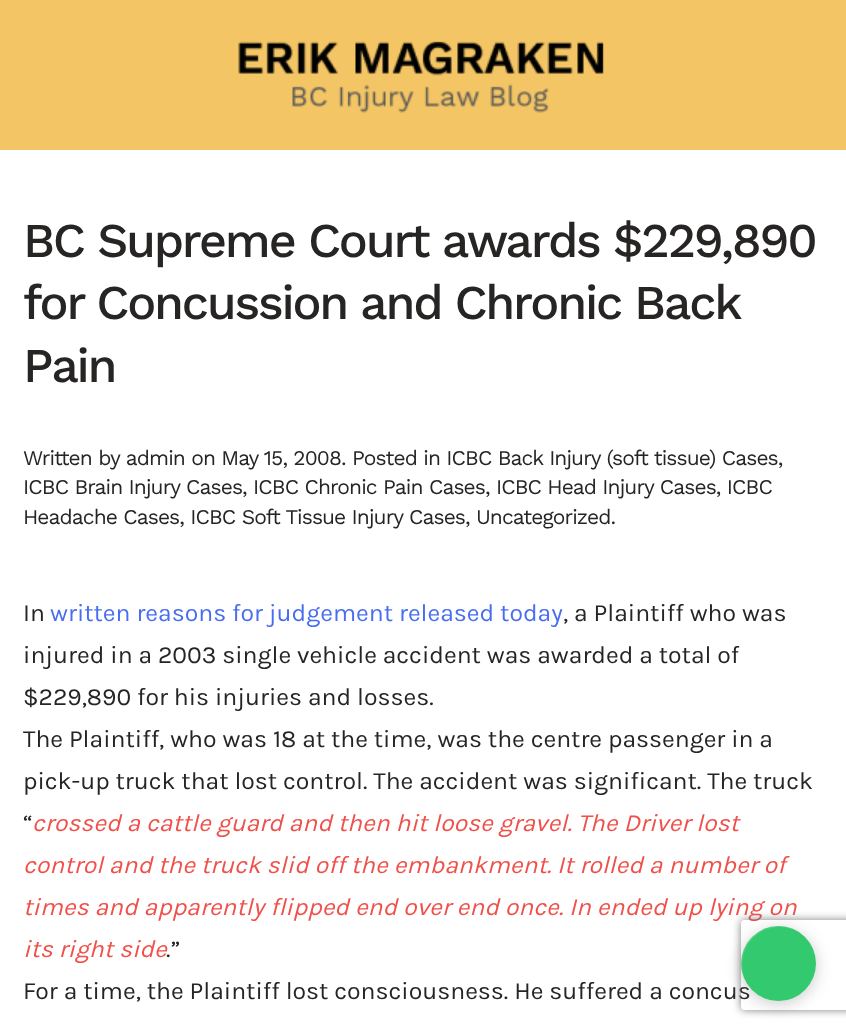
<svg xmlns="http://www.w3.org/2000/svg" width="846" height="1030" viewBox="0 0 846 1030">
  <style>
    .t1 { font: 500 48.5px Work Sans; letter-spacing: -2.25px; fill: #272424; }
    .t2 { font: 21px Work Sans; letter-spacing: -0.9px; fill: #272424; }
    .t3 { font: 24.75px Karla; fill: #272424; }
    .t4 { font: 24.75px Karla; fill: #496df1; }
    .t5 { font: italic 24.75px Karla; fill: #f0504a; }
  </style>
  <defs>
    <clipPath id="clip1"><path d="M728 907H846V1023H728ZM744 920H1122C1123.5 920 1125 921.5 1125 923V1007C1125 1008.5 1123.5 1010 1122 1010H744C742.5 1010 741 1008.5 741 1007V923C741 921.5 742.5 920 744 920Z" clip-rule="evenodd"/></clipPath>
  </defs>
  <rect width="100%" height="100%" fill="#fff"/>
  <rect x="0" y="0" width="846" height="150" fill="#f3c565"/>
  <image x="238" y="41" width="366" height="72" href="images/1.png"/>
  <text x="23" y="257" class="t1">BC Supreme Court awards $229,890</text>
  <text x="23" y="319" word-spacing="-0.5" class="t1">for Concussion and Chronic Back</text>
  <text x="23" y="382" class="t1">Pain</text>
  <text x="23" y="465" class="t2">Written by admin on May 15, 2008. Posted in ICBC Back Injury (soft tissue) Cases,</text>
  <text x="23" y="494" class="t2">ICBC Brain Injury Cases, ICBC Chronic Pain Cases, ICBC Head Injury Cases, ICBC</text>
  <text x="23" y="524" class="t2">Headache Cases, ICBC Soft Tissue Injury Cases, Uncategorized.</text>
  <text x="23" y="621" class="t3">In</text>
  <text x="50" y="621" class="t4">written reasons for judgement released today</text>
  <text x="563" y="621" class="t3">, a Plaintiff who was</text>
  <text x="23" y="663" class="t3">injured in a 2003 single vehicle accident was awarded a total of</text>
  <text x="23" y="705" class="t3">$229,890 for his injuries and losses.</text>
  <text x="23" y="747" class="t3">The Plaintiff, who was 18 at the time, was the centre passenger in a</text>
  <text x="23" y="789" class="t3">pick-up truck that lost control. The accident was significant. The truck</text>
  <text x="23" y="831" class="t3">“</text>
  <text x="32" y="831" class="t5">crossed a cattle guard and then hit loose gravel. The Driver lost</text>
  <text x="23" y="873" class="t5">control and the truck slid off the embankment. It rolled a number of</text>
  <text x="23" y="915" class="t5">times and apparently flipped end over end once. In ended up lying on</text>
  <text x="23" y="957" class="t5">its right side</text>
  <text x="166" y="957" class="t3">.”</text>
  <text x="23" y="999" class="t3">For a time, the Plaintiff lost consciousness. He suffered a concus</text>
  <rect x="741" y="929" width="75" height="75" rx="37.5" fill="#80808066" filter="blur(8px)"/>
  <g clip-path="url(#clip1)">
    <rect x="741" y="920" width="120" height="90" rx="3" fill="#808080" filter="blur(4px)"/>
  </g>
  <circle cx="778.5" cy="963.5" r="37.5" fill="#33c96e"/>
  <path d="M780 927C787 927 793 929 798 932C782 921 759 926 747 943C736 959 740 982 756 994C729 972 744 927 780 927Z" fill="#ffffff26"/>
</svg>
